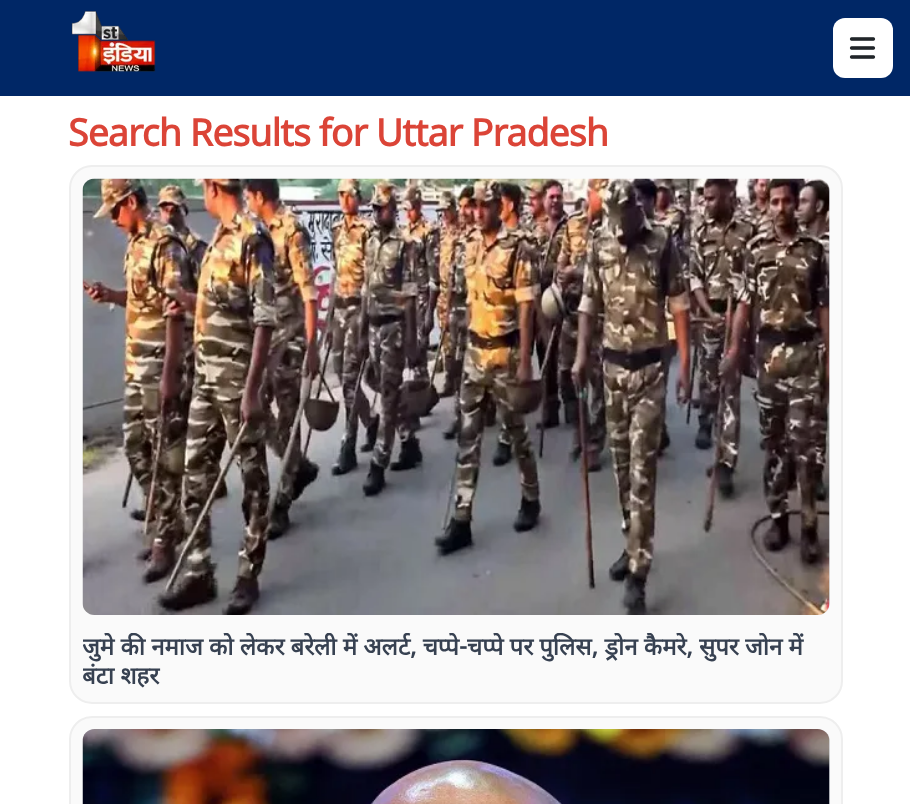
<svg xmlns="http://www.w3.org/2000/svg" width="910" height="804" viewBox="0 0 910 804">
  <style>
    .t1 { font: bold 37.5px Noto Sans; letter-spacing: -0.95px; fill: #db4437; }
    .t2 { font: bold 24px Noto Sans; fill: #374151; }
  </style>
  <defs>
    <clipPath id="clip1"><rect x="83" y="633" width="747" height="57"/></clipPath>
  </defs>
  <rect width="100%" height="100%" fill="#fff"/>
  <rect x="0" y="0" width="910" height="96" fill="#002766"/>
  <image x="71" y="10" width="85" height="62" href="images/1.png"/>
  <rect x="833" y="18" width="60" height="60" rx="12" fill="#fff"/>
  <image x="849" y="37" width="27" height="22" href="images/2.png"/>
  <text x="68" y="146" class="t1">Search Results for Uttar Pradesh</text>
  <rect x="70" y="166" width="772" height="537" rx="22" fill="#fafafa" stroke="#eee" stroke-width="2"/>
  <rect x="83" y="179" width="747" height="436" rx="12" fill="#e5e7eb"/>
  <image x="82" y="178" width="748" height="437" href="images/3.png"/>
  <g clip-path="url(#clip1)">
    <text x="82" y="655" class="t2">जुमे की नमाज को लेकर बरेली में अलर्ट, चप्पे-चप्पे पर पुलिस, ड्रोन कैमरे, सुपर जोन में</text>
    <text x="82" y="684" class="t2">बंटा शहर</text>
  </g>
  <rect x="70" y="717" width="772" height="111" rx="22" fill="#fafafa" stroke="#eee" stroke-width="2"/>
  <rect x="83" y="729" width="747" height="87" rx="12" fill="#e5e7eb"/>
  <image x="82" y="729" width="748" height="75" href="images/4.png"/>
</svg>
